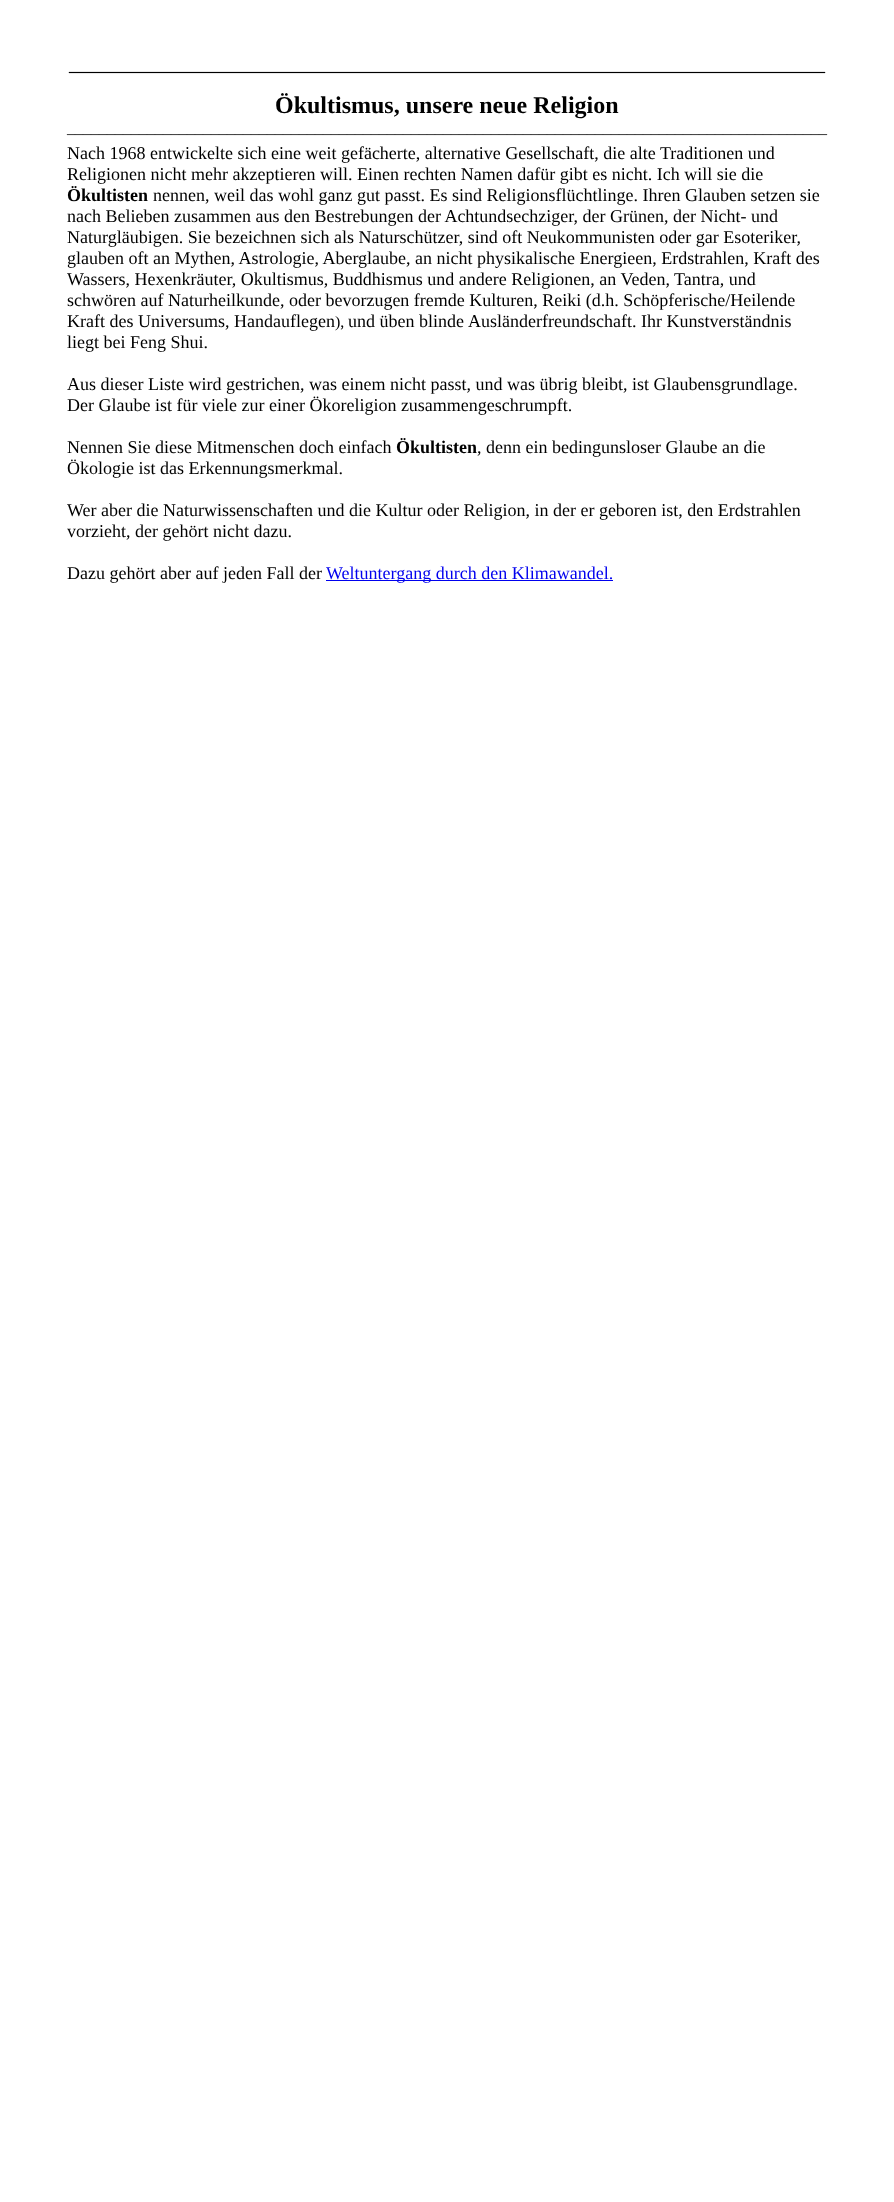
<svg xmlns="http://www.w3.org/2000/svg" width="894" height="2202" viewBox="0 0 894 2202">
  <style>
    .t1 { font: 24px Liberation Serif; fill: #000; }
    .t2 { font: bold 24px Liberation Serif; fill: #000; }
    .t3 { font: 16px Liberation Serif; fill: #000; }
    .t4 { font: 18px Liberation Serif; fill: #000; }
    .t5 { font: bold 18px Liberation Serif; fill: #000; }
    .t6 { font: 18px Liberation Serif; fill: #00e; }
  </style>
  <rect width="100%" height="100%" fill="#fff"/>
  <text x="69" y="70" class="t1">_______________________________________________________________</text>
  <text x="275" y="113" class="t2">Ökultismus, unsere neue Religion</text>
  <text x="67" y="133" class="t3">_______________________________________________________________________________________________</text>
  <text x="67" y="159" class="t4">Nach 1968 entwickelte sich eine weit gefächerte, alternative Gesellschaft, die alte Traditionen und</text>
  <text x="67" y="180" class="t4">Religionen nicht mehr akzeptieren will. Einen rechten Namen dafür gibt es nicht. Ich will sie die</text>
  <text x="67" y="201" class="t5">Ökultisten</text>
  <text x="153" y="201" class="t4">nennen, weil das wohl ganz gut passt. Es sind Religionsflüchtlinge. Ihren Glauben setzen sie</text>
  <text x="67" y="222" class="t4">nach Belieben zusammen aus den Bestrebungen der Achtundsechziger, der Grünen, der Nicht- und</text>
  <text x="67" y="243" class="t4">Naturgläubigen. Sie bezeichnen sich als Naturschützer, sind oft Neukommunisten oder gar Esoteriker,</text>
  <text x="67" y="264" class="t4">glauben oft an Mythen, Astrologie, Aberglaube, an nicht physikalische Energieen, Erdstrahlen, Kraft des</text>
  <text x="67" y="285" class="t4">Wassers, Hexenkräuter, Okultismus, Buddhismus und andere Religionen, an Veden, Tantra, und</text>
  <text x="67" y="306" class="t4">schwören auf Naturheilkunde, oder bevorzugen fremde Kulturen, Reiki (d.h. Schöpferische/Heilende</text>
  <text x="67" y="327" class="t4">Kraft des Universums, Handauflegen</text>
  <text x="335" y="327" class="t3">),</text>
  <text x="348" y="327" class="t4">und üben blinde</text>
  <text x="468" y="327" class="t4">Ausländerfreundschaft. Ihr Kunstverständnis</text>
  <text x="67" y="348" class="t4">liegt bei Feng Shui.</text>
  <text x="67" y="390" class="t4">Aus dieser Liste wird gestrichen, was einem nicht passt, und was übrig bleibt, ist Glaubensgrundlage.</text>
  <text x="67" y="411" class="t4">Der Glaube ist für viele zur einer Ökoreligion zusammengeschrumpft.</text>
  <text x="67" y="453" class="t4">Nennen Sie diese Mitmenschen doch einfach</text>
  <text x="396" y="453" class="t5">Ökultisten</text>
  <text x="477" y="453" class="t4">, denn ein bedingunsloser Glaube an die</text>
  <text x="67" y="474" class="t4">Ökologie ist das Erkennungsmerkmal.</text>
  <text x="67" y="516" class="t4">Wer aber die Naturwissenschaften und die Kultur oder Religion, in der er geboren ist, den Erdstrahlen</text>
  <text x="67" y="537" class="t4">vorzieht, der gehört nicht dazu.</text>
  <text x="67" y="579" class="t4">Dazu gehört aber auf jeden Fall der</text>
  <rect x="326" y="580" width="287" height="1" fill="#00e"/>
  <text x="326" y="579" class="t6">Weltuntergang durch den Klimawandel.</text>
</svg>
